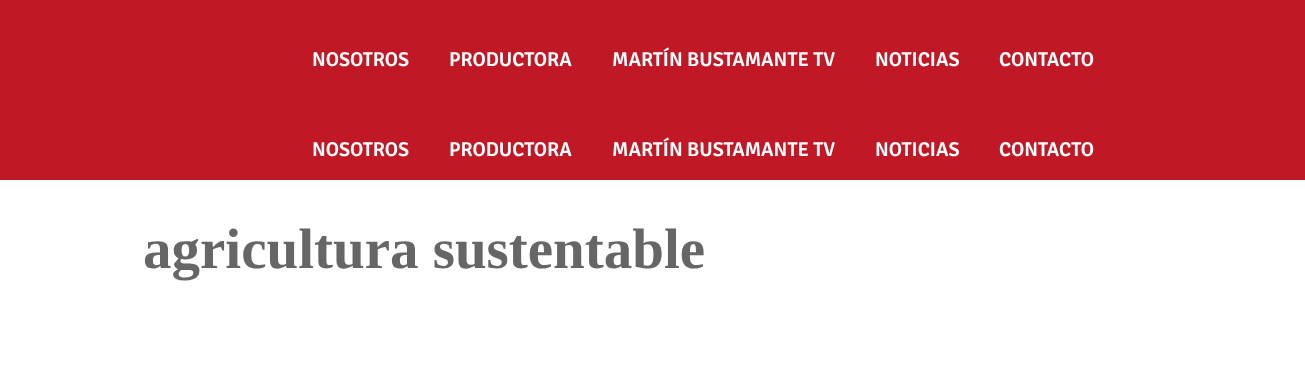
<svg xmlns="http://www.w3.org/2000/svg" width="1305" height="374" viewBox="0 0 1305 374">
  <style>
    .t1 { font: 600 20px Signika; fill: #fff; }
    .t2 { font: bold 57px Liberation Serif; fill: #666; }
  </style>
  <rect width="100%" height="100%" fill="#fff"/>
  <rect x="0" y="0" width="1305" height="180" fill="#c11826"/>
  <text x="312" y="66" class="t1">NOSOTROS</text>
  <text x="449" y="66" class="t1">PRODUCTORA</text>
  <text x="612" y="66" class="t1">MARTÍN BUSTAMANTE TV</text>
  <text x="875" y="66" class="t1">NOTICIAS</text>
  <text x="999" y="66" class="t1">CONTACTO</text>
  <text x="312" y="156" class="t1">NOSOTROS</text>
  <text x="449" y="156" class="t1">PRODUCTORA</text>
  <text x="612" y="156" class="t1">MARTÍN BUSTAMANTE TV</text>
  <text x="875" y="156" class="t1">NOTICIAS</text>
  <text x="999" y="156" class="t1">CONTACTO</text>
  <text x="143" y="268" class="t2">agricultura sustentable</text>
</svg>
